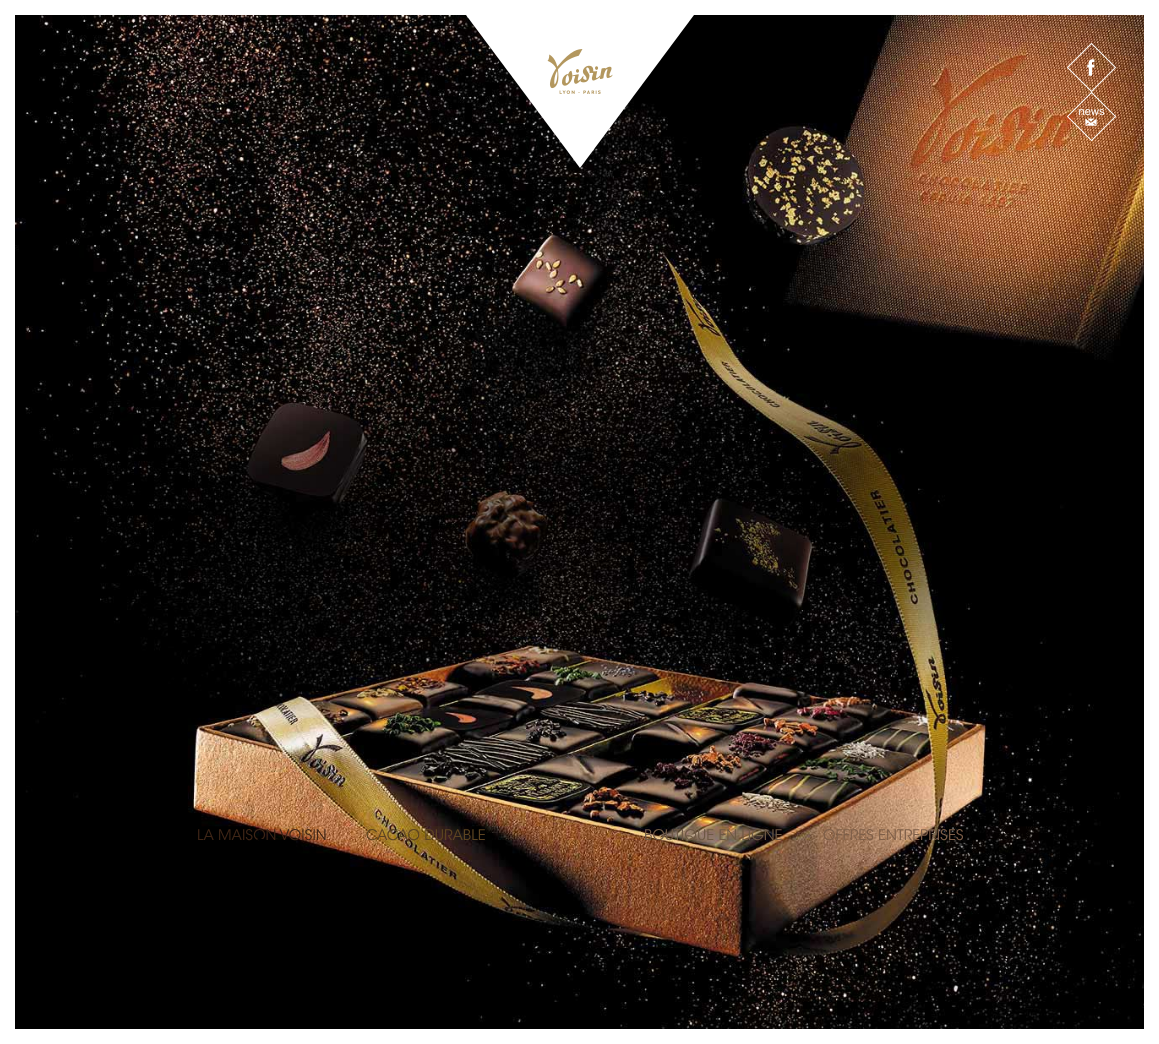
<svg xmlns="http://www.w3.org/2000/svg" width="1159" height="1044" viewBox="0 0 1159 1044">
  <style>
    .t1 { font: 300 14.6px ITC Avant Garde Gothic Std; fill: #3e2516; }
    .t2 { font: 300 14.6px ITC Avant Garde Gothic Std; fill: #5c4421; }
    .t3 { font: 300 14.6px ITC Avant Garde Gothic Std; fill: #6e5945; }
    .t4 { font: 300 14.6px ITC Avant Garde Gothic Std; fill: #7e5f49; }
  </style>
  <rect width="100%" height="100%" fill="#fff"/>
  <image x="15" y="15" width="1129" height="1014" href="images/1.png"/>
  <path d="M580 168L466 15H694Z" fill="#fff"/>
  <image x="547" y="49" width="66" height="45" href="images/2.png"/>
  <image x="1067" y="43" width="49" height="49" href="images/3.png"/>
  <image x="1067" y="92" width="49" height="49" href="images/4.png"/>
  <text x="197" y="840" class="t1">LA MAISON VOISIN</text>
  <path d="M261 843L257 839H265Z" fill="#000001"/>
  <text x="366" y="840" class="t2">CACAO DURABLE</text>
  <text x="644" y="840" class="t3">BOUTIQUE EN LIGNE</text>
  <text x="823" y="840" class="t4">OFFRES ENTREPRISES</text>
</svg>
